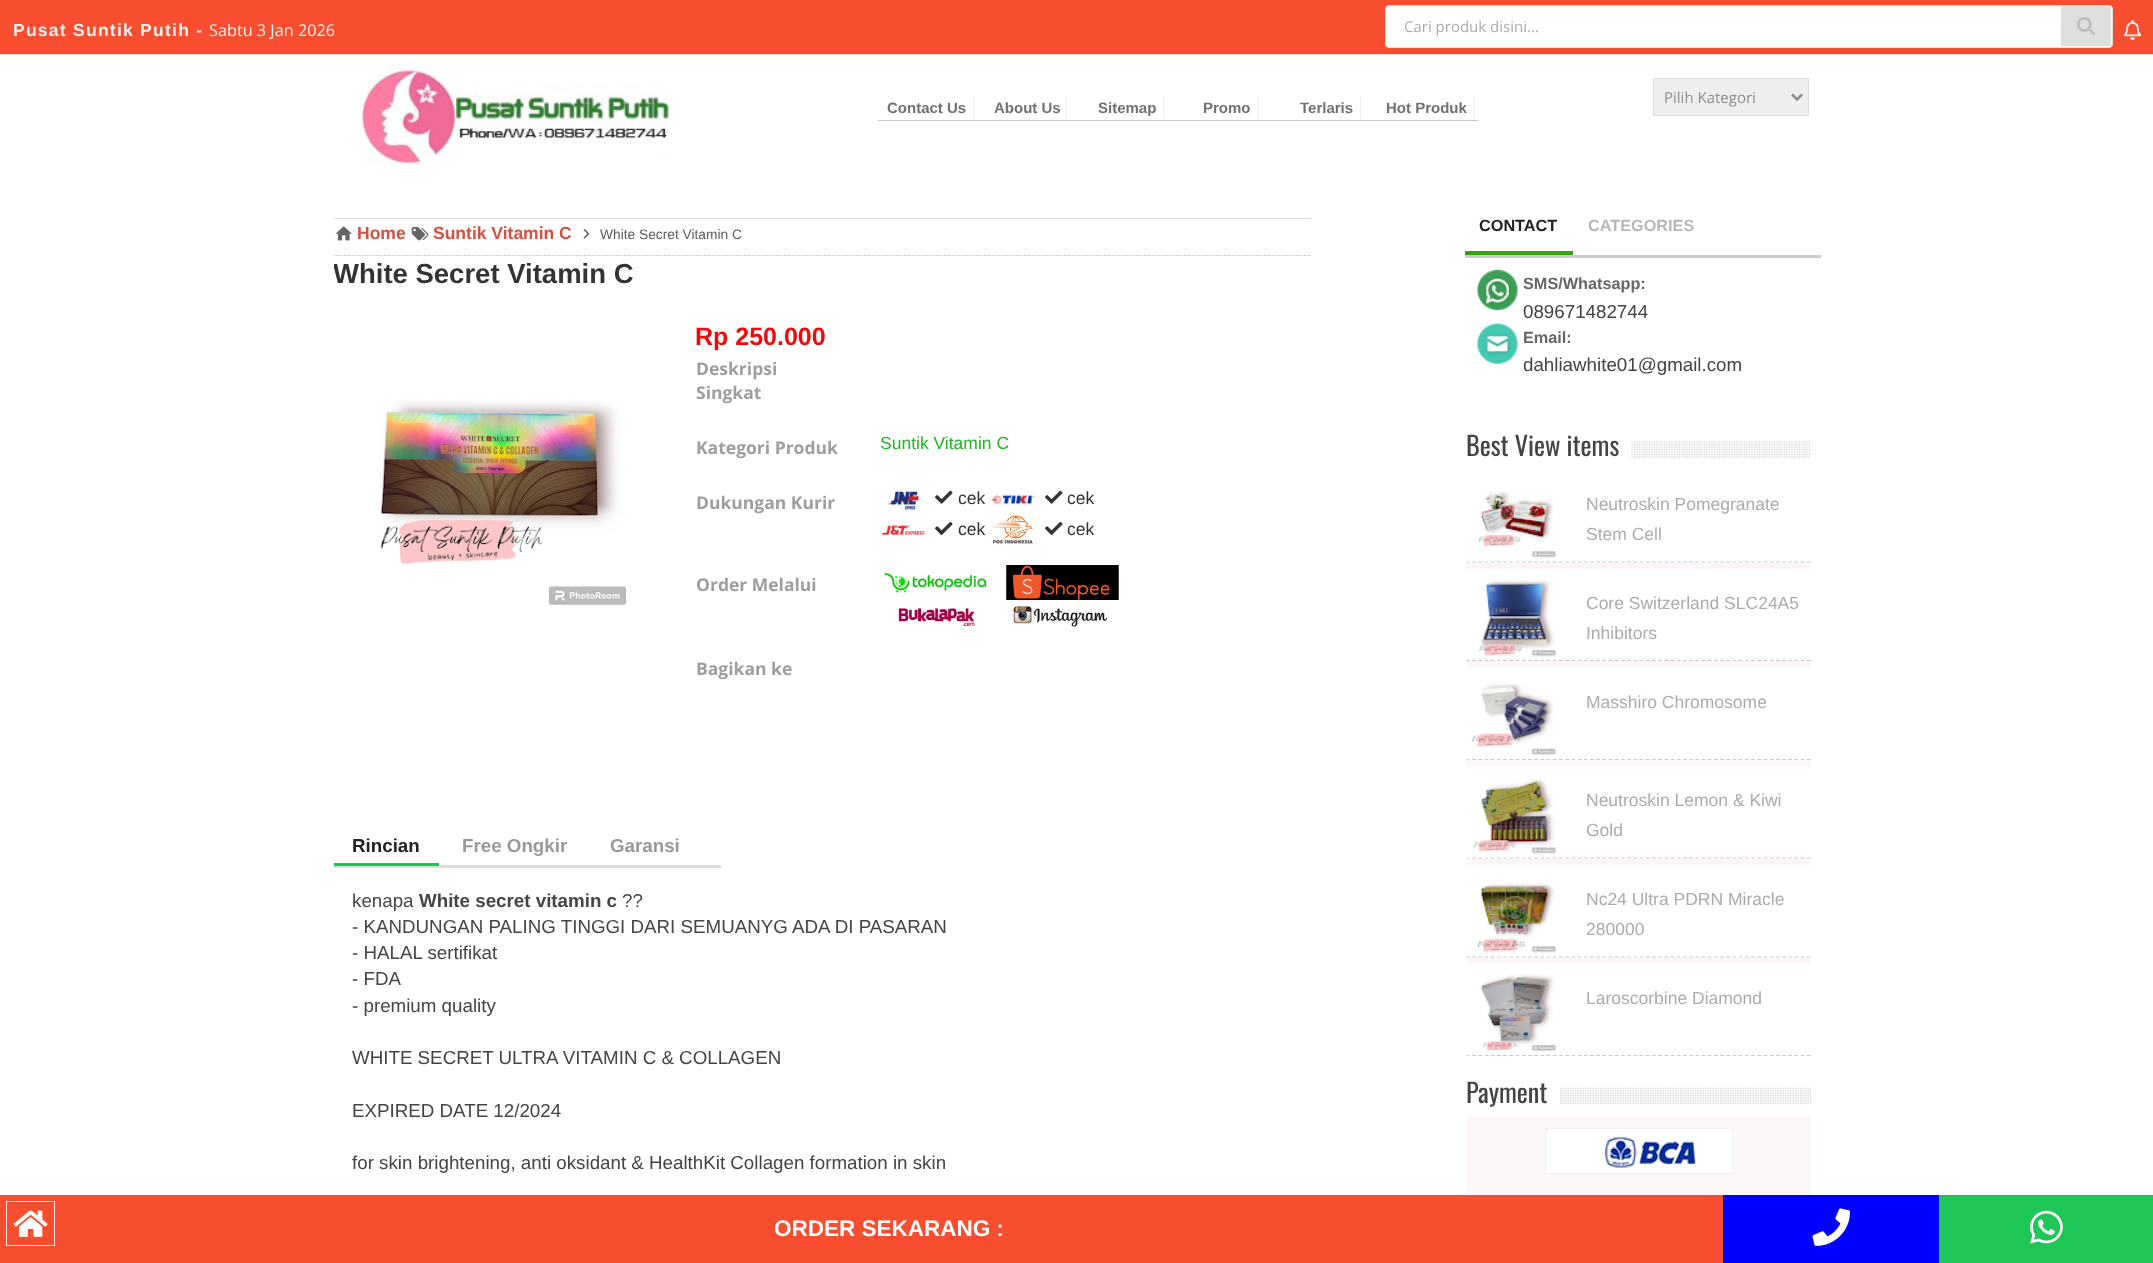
<svg xmlns="http://www.w3.org/2000/svg" width="2153" height="1263" viewBox="0 0 2153 1263">
  <style>
    .t1 { font: bold 17.5px Liberation Sans; letter-spacing: 1.25px; fill: #f1f1f1; }
    .t2 { font: 16.25px Open Sans; fill: #f1f1f1; }
    .t3 { font: 15px Open Sans; fill: #acabab; }
    .t4 { font: 15px Open Sans; fill: #8e8e8e; }
    .t5 { font: bold 15px Liberation Sans; fill: #737070; }
    .t6 { font: bold 17.5px Liberation Sans; fill: #d55040; }
    .t7 { font: 13.75px Liberation Sans; fill: #5b5b5b; }
    .t8 { font: bold 27.5px Liberation Sans; fill: #333; }
    .t9 { font: bold 25px Liberation Sans; fill: #f20909; }
    .t10 { font: bold 17.5px Open Sans; fill: #9f9e9e; }
    .t11 { font: 17.5px Liberation Sans; fill: #1cb722; }
    .t12 { font: 17.5px Liberation Sans; fill: #333; }
    .t13 { font: bold 18.75px Liberation Sans; fill: #222; }
    .t14 { font: bold 18.75px Liberation Sans; fill: #9b9898; }
    .t15 { font: 18.75px Liberation Sans; fill: #444; }
    .t16 { font: bold 18.75px Liberation Sans; fill: #444; }
    .t17 { font: bold 22.5px Liberation Sans; fill: #fff; }
    .t18 { font: bold 16.25px Liberation Sans; fill: #222; }
    .t19 { font: bold 16.25px Liberation Sans; fill: #b9b6b6; }
    .t20 { font: bold 16.25px Liberation Sans; fill: #666; }
    .t21 { font: 26.25px Oswald; fill: #444; }
    .t22 { font: 17.5px Liberation Sans; fill: #acabab; }
  </style>
  <defs>
    <clipPath id="clip1"><rect x="334" y="199" width="977" height="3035"/></clipPath>
  </defs>
  <rect width="100%" height="100%" fill="#fff"/>
  <rect x="0" y="0" width="2153" height="54" fill="#f94d2f"/>
  <rect x="0" y="54" width="2153" height="1" fill="#ddd"/>
  <text x="13" y="36" class="t1">Pusat Suntik Putih -</text>
  <text x="209" y="36" class="t2">Sabtu 3 Jan 2026</text>
  <rect x="1385.5" y="5.5" width="727" height="42" rx="3.5" fill="#fff" stroke="#e0e0e0"/>
  <text x="1404" y="32" class="t3">Cari produk disini...</text>
  <rect x="2061" y="6" width="50" height="40" fill="#dfdfdf"/>
  <image x="2077" y="17" width="18" height="18" href="images/1.png"/>
  <image x="2123" y="20" width="19" height="20" href="images/2.png"/>
  <image x="359" y="62" width="312" height="103" href="images/3.png"/>
  <rect x="1653.5" y="78.5" width="155" height="37" fill="#eee" stroke="#ddd"/>
  <path d="M1792 94.5L1797 99.5L1802 94.5" fill="none" stroke="#8e8e8e" stroke-width="2.5"/>
  <text x="1664" y="103" class="t4">Pilih Kategori</text>
  <text x="887" y="113" class="t5">Contact Us</text>
  <rect x="973" y="96" width="1" height="23" fill="#eee"/>
  <text x="994" y="113" class="t5">About Us</text>
  <rect x="1066" y="96" width="1" height="23" fill="#eee"/>
  <text x="1098" y="113" class="t5">Sitemap</text>
  <rect x="1163" y="96" width="1" height="23" fill="#eee"/>
  <text x="1203" y="113" class="t5">Promo</text>
  <rect x="1258" y="96" width="1" height="23" fill="#eee"/>
  <text x="1300" y="113" class="t5">Terlaris</text>
  <rect x="1360" y="96" width="1" height="23" fill="#eee"/>
  <rect x="878" y="120" width="600" height="1" fill="#cec7c7"/>
  <text x="1386" y="113" class="t5">Hot Produk</text>
  <rect x="1474" y="96" width="1" height="23" fill="#eee"/>
  <rect x="334" y="218" width="977" height="1" fill="#dedede"/>
  <path d="M334 255.5H1311" fill="none" stroke="#bbb" stroke-width="1.2" stroke-dasharray="1.25 1.25"/>
  <image x="335" y="226" width="17" height="15" href="images/4.png"/>
  <text x="357" y="239" class="t6">Home</text>
  <image x="411" y="227" width="18" height="14" href="images/5.png"/>
  <text x="433" y="239" class="t6">Suntik Vitamin C</text>
  <image x="583" y="228" width="7" height="11" href="images/6.png"/>
  <text x="600" y="239" class="t7">White Secret Vitamin C</text>
  <g clip-path="url(#clip1)">
    <text x="333" y="283" class="t8">White Secret Vitamin C</text>
  </g>
  <text x="695" y="345" class="t9">Rp 250.000</text>
  <image x="380" y="400" width="246" height="205" href="images/7.png"/>
  <text x="696" y="375" class="t10">Deskripsi</text>
  <text x="696" y="399" class="t10">Singkat</text>
  <text x="696" y="454" class="t10">Kategori Produk</text>
  <text x="880" y="449" class="t11">Suntik Vitamin C</text>
  <text x="696" y="509" class="t10">Dukungan Kurir</text>
  <image x="887" y="491" width="32" height="19" href="images/8.png"/>
  <image x="935" y="490" width="18" height="14" href="images/9.png"/>
  <text x="958" y="504" class="t12">cek</text>
  <image x="991" y="495" width="44" height="10" href="images/10.png"/>
  <image x="1045" y="490" width="18" height="14" href="images/9.png"/>
  <text x="1067" y="504" class="t12">cek</text>
  <image x="881" y="525" width="44" height="11" href="images/11.png"/>
  <image x="935" y="521" width="18" height="14" href="images/12.png"/>
  <text x="958" y="535" class="t12">cek</text>
  <image x="992" y="515" width="41" height="29" href="images/13.png"/>
  <image x="1045" y="521" width="18" height="14" href="images/12.png"/>
  <text x="1067" y="535" class="t12">cek</text>
  <text x="696" y="591" class="t10">Order Melalui</text>
  <image x="884" y="571" width="106" height="22" href="images/14.png"/>
  <image x="1006" y="565" width="113" height="35" href="images/15.png"/>
  <image x="898" y="608" width="77" height="18" href="images/16.png"/>
  <image x="1011" y="605" width="97" height="22" href="images/17.png"/>
  <text x="696" y="675" class="t10">Bagikan ke</text>
  <rect x="334" y="865" width="387" height="3" fill="#ddd"/>
  <rect x="334" y="863" width="105" height="3" fill="#12c84d"/>
  <text x="352" y="852" class="t13">Rincian</text>
  <text x="462" y="852" class="t14">Free Ongkir</text>
  <text x="610" y="852" class="t14">Garansi</text>
  <text x="352" y="907" class="t15">kenapa</text>
  <text x="419" y="907" class="t16">White secret vitamin c</text>
  <text x="622" y="907" class="t15">??</text>
  <text x="352" y="933" class="t15">- KANDUNGAN PALING TINGGI DARI SEMUANYG ADA DI PASARAN</text>
  <text x="352" y="959" class="t15">- HALAL sertifikat</text>
  <text x="352" y="985" class="t15">- FDA</text>
  <text x="352" y="1012" class="t15">- premium quality</text>
  <text x="352" y="1064" class="t15">WHITE SECRET ULTRA VITAMIN C &amp; COLLAGEN</text>
  <text x="352" y="1117" class="t15">EXPIRED DATE 12/2024</text>
  <text x="352" y="1169" class="t15">for skin brightening, anti oksidant &amp; HealthKit Collagen formation in skin</text>
  <rect x="0" y="1195" width="1723" height="68" fill="#f94d2f"/>
  <rect x="6.5" y="1201.5" width="48" height="44" fill="none" stroke="#eee"/>
  <image x="13" y="1210" width="35" height="27" href="images/18.png"/>
  <text x="774" y="1236" class="t17">ORDER SEKARANG :</text>
  <rect x="1723" y="1195" width="216" height="68" fill="#00f"/>
  <image x="1812" y="1208" width="38" height="38" href="images/19.png"/>
  <rect x="1939" y="1195" width="214" height="68" fill="#1ec657"/>
  <image x="2030" y="1210" width="33" height="34" href="images/20.png"/>
  <rect x="1465" y="255" width="356" height="3" fill="#cccaca"/>
  <rect x="1465" y="251" width="108" height="4" fill="#35a407"/>
  <text x="1479" y="231" class="t18">CONTACT</text>
  <text x="1588" y="231" class="t19">CATEGORIES</text>
  <image x="1477" y="270" width="41" height="40" href="images/21.png"/>
  <text x="1523" y="289" class="t20">SMS/Whatsapp:</text>
  <text x="1523" y="318" class="t15">089671482744</text>
  <image x="1477" y="323" width="41" height="41" href="images/22.png"/>
  <text x="1523" y="343" class="t20">Email:</text>
  <text x="1523" y="371" class="t15">dahliawhite01@gmail.com</text>
  <rect x="1466" y="563" width="345" height="401" fill="#fbf7f7"/>
  <text x="1466" y="456" class="t21">Best View items</text>
  <image x="1631" y="441" width="181" height="18" href="images/23.png"/>
  <path d="M1466 562H1811" fill="none" stroke="#ccc8c8" stroke-width="1.2" stroke-dasharray="3.75 2.45"/>
  <rect x="1466" y="561" width="1" height="2" fill="#fff"/>
  <image x="1478" y="491" width="79" height="67" href="images/24.png"/>
  <text x="1586" y="510" class="t22">Neutroskin Pomegranate</text>
  <text x="1586" y="540" class="t22">Stem Cell</text>
  <rect x="1467" y="569" width="344" height="92" fill="#fff"/>
  <path d="M1466 660.5H1811" fill="none" stroke="#ccc8c8" stroke-width="1.2" stroke-dasharray="3.75 2.45"/>
  <rect x="1466" y="569" width="1" height="92" fill="#fff"/>
  <image x="1468" y="580" width="92" height="80" href="images/25.png"/>
  <text x="1586" y="609" class="t22">Core Switzerland SLC24A5</text>
  <text x="1586" y="639" class="t22">Inhibitors</text>
  <rect x="1467" y="668" width="344" height="92" fill="#fff"/>
  <path d="M1466 759.5H1811" fill="none" stroke="#ccc8c8" stroke-width="1.2" stroke-dasharray="3.75 2.45"/>
  <rect x="1466" y="668" width="1" height="92" fill="#fff"/>
  <image x="1471" y="683" width="86" height="72" href="images/26.png"/>
  <text x="1586" y="708" class="t22">Masshiro Chromosome</text>
  <rect x="1467" y="766" width="344" height="93" fill="#fff"/>
  <path d="M1466 858H1811" fill="none" stroke="#ccc8c8" stroke-width="1.2" stroke-dasharray="3.75 2.45"/>
  <rect x="1466" y="766" width="1" height="93" fill="#fff"/>
  <image x="1468" y="778" width="92" height="80" href="images/27.png"/>
  <text x="1586" y="806" class="t22">Neutroskin Lemon &amp; Kiwi</text>
  <text x="1586" y="836" class="t22">Gold</text>
  <rect x="1467" y="865" width="344" height="93" fill="#fff"/>
  <path d="M1466 957H1811" fill="none" stroke="#ccc8c8" stroke-width="1.2" stroke-dasharray="3.75 2.45"/>
  <rect x="1466" y="865" width="1" height="93" fill="#fff"/>
  <image x="1477" y="883" width="80" height="70" href="images/28.png"/>
  <text x="1586" y="905" class="t22">Nc24 Ultra PDRN Miracle</text>
  <text x="1586" y="935" class="t22">280000</text>
  <path d="M1466 1055.5H1811" fill="none" stroke="#ccc8c8" stroke-width="1.2" stroke-dasharray="3.75 2.45"/>
  <rect x="1466" y="1054" width="1" height="2" fill="#fff"/>
  <image x="1468" y="974" width="92" height="81" href="images/29.png"/>
  <text x="1586" y="1004" class="t22">Laroscorbine Diamond</text>
  <rect x="1466" y="1116" width="345" height="79" fill="#fbf7f7"/>
  <text x="1466" y="1103" class="t21">Payment</text>
  <image x="1560" y="1087" width="251" height="17" href="images/30.png"/>
  <image x="1546" y="1129" width="186" height="44" href="images/31.png"/>
  <rect x="1545.5" y="1128.5" width="187" height="45" fill="none" stroke="#f1f1f1"/>
</svg>
